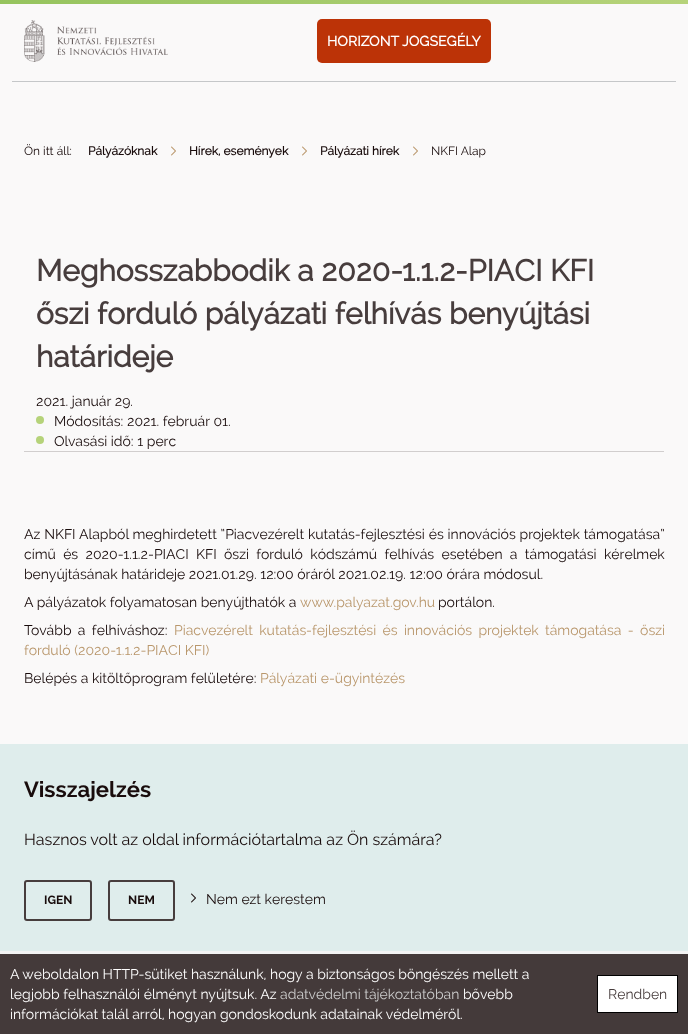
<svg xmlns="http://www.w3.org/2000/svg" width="688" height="1034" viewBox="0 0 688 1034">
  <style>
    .t1 { font: bold 14px Raleway; fill: #fff; }
    .t2 { font: 12px Raleway; fill: #190c0c; }
    .t3 { font: bold 12px Raleway; fill: #190c0c; }
    .t4 { font: bold 30px Raleway; fill: #473d3d; }
    .t5 { font: 14px Raleway; fill: #190c0c; }
    .t6 { font: 14px Raleway; fill: #b9976c; }
    .t7 { font: bold 22px 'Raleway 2'; fill: #190c0c; }
    .t8 { font: 16px Raleway; fill: #190c0c; }
    .t9 { font: bold 12px 'Raleway 2'; fill: #190c0c; }
    .t10 { font: 14px Raleway; fill: #fff; }
    .t11 { font: 14px Raleway; fill: #ccc; }
    .t12 { font: 14px Raleway; fill: #473d3d; }
  </style>
  <defs>
    <linearGradient id="g1" gradientUnits="userSpaceOnUse" x1="-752" y1="2" x2="688" y2="2"><stop offset="0" stop-color="#72b340"/><stop offset="1" stop-color="#b6d37a"/></linearGradient>
  </defs>
  <rect width="100%" height="100%" fill="#faf9f9"/>
  <rect x="0" y="0" width="688" height="4" fill="url(#g1)"/>
  <rect x="12" y="81" width="664" height="1" fill="#c5c7c9"/>
  <image x="24" y="20" width="144" height="42" href="images/1.png"/>
  <rect x="317" y="19" width="174" height="44" rx="5" fill="#bc3307"/>
  <text x="327" y="46" class="t1">HORIZONT JOGSEGÉLY</text>
  <text x="24" y="155" class="t2">Ön itt áll:</text>
  <text x="88" y="155" class="t3">Pályázóknak</text>
  <image x="171" y="146" width="5" height="10" href="images/2.png"/>
  <text x="189" y="155" class="t3">Hírek, események</text>
  <image x="302" y="146" width="5" height="10" href="images/2.png"/>
  <text x="320" y="155" class="t3">Pályázati hírek</text>
  <image x="413" y="146" width="5" height="10" href="images/2.png"/>
  <text x="431" y="155" class="t2">NKFI Alap</text>
  <rect x="24" y="451" width="640" height="1" fill="#d1cece"/>
  <text x="36" y="281" class="t4">Meghosszabbodik a 2020-1.1.2-PIACI KFI</text>
  <text x="36" y="324" class="t4">őszi forduló pályázati felhívás benyújtási</text>
  <text x="36" y="367" class="t4">határideje</text>
  <text x="36" y="406" class="t5">2021. január 29.</text>
  <circle cx="40" cy="420" r="4" fill="#b6d37a"/>
  <text x="54" y="426" class="t5">Módosítás: 2021. február 01.</text>
  <circle cx="40" cy="440" r="4" fill="#b6d37a"/>
  <text x="54" y="446" class="t5">Olvasási idő: 1 perc</text>
  <text x="24" y="539" word-spacing="0.25" class="t5">Az NKFI Alapból meghirdetett ”Piacvezérelt kutatás-fejlesztési és innovációs projektek támogatása”</text>
  <text x="24" y="559" word-spacing="3.75" class="t5">című és 2020-1.1.2-PIACI KFI őszi forduló kódszámú felhívás esetében a támogatási kérelmek</text>
  <text x="24" y="579" class="t5">benyújtásának határideje 2021.01.29. 12:00 óráról 2021.02.19. 12:00 órára módosul.</text>
  <text x="24" y="607" class="t5">A pályázatok folyamatosan benyújthatók a</text>
  <text x="300" y="607" class="t6">www.palyazat.gov.hu</text>
  <text x="438" y="607" class="t5">portálon.</text>
  <text x="24" y="635" word-spacing="2.75" class="t5">Tovább a felhíváshoz:</text>
  <text x="174" y="635" word-spacing="2.75" class="t6">Piacvezérelt kutatás-fejlesztési és innovációs projektek támogatása - őszi</text>
  <text x="24" y="655" class="t6">forduló (2020-1.1.2-PIACI KFI)</text>
  <text x="24" y="683" class="t5">Belépés a kitöltőprogram felületére:</text>
  <text x="260" y="683" class="t6">Pályázati e-ügyintézés</text>
  <rect x="0" y="744" width="688" height="207" fill="#dfedec"/>
  <text x="24" y="797" class="t7">Visszajelzés</text>
  <text x="24" y="845" class="t8">Hasznos volt az oldal információtartalma az Ön számára?</text>
  <rect x="25" y="881" width="66" height="39" rx="2" fill="none" stroke="#473d3d" stroke-width="2"/>
  <text x="44" y="904" class="t9">IGEN</text>
  <rect x="109" y="881" width="65" height="39" rx="2" fill="none" stroke="#473d3d" stroke-width="2"/>
  <text x="128" y="904" class="t9">NEM</text>
  <image x="191" y="893" width="5" height="10" href="images/3.png"/>
  <text x="206" y="904" class="t5">Nem ezt kerestem</text>
  <rect x="0" y="951" width="688" height="3" fill="#f3f3f3"/>
  <rect x="0" y="954" width="688" height="80" fill="#443a3a"/>
  <text x="10" y="979" class="t10">A weboldalon HTTP-sütiket használunk, hogy a biztonságos böngészés mellett a</text>
  <text x="10" y="999" class="t10">legjobb felhasználói élményt nyújtsuk. Az</text>
  <text x="280" y="999" class="t11">adatvédelmi tájékoztatóban</text>
  <text x="463" y="999" class="t10">bővebb</text>
  <text x="10" y="1019" class="t10">információkat talál arról, hogyan gondoskodunk adatainak védelméről.</text>
  <rect x="597.5" y="975.5" width="80" height="37" fill="#fff" stroke="#000"/>
  <text x="608" y="999" class="t12">Rendben</text>
</svg>
